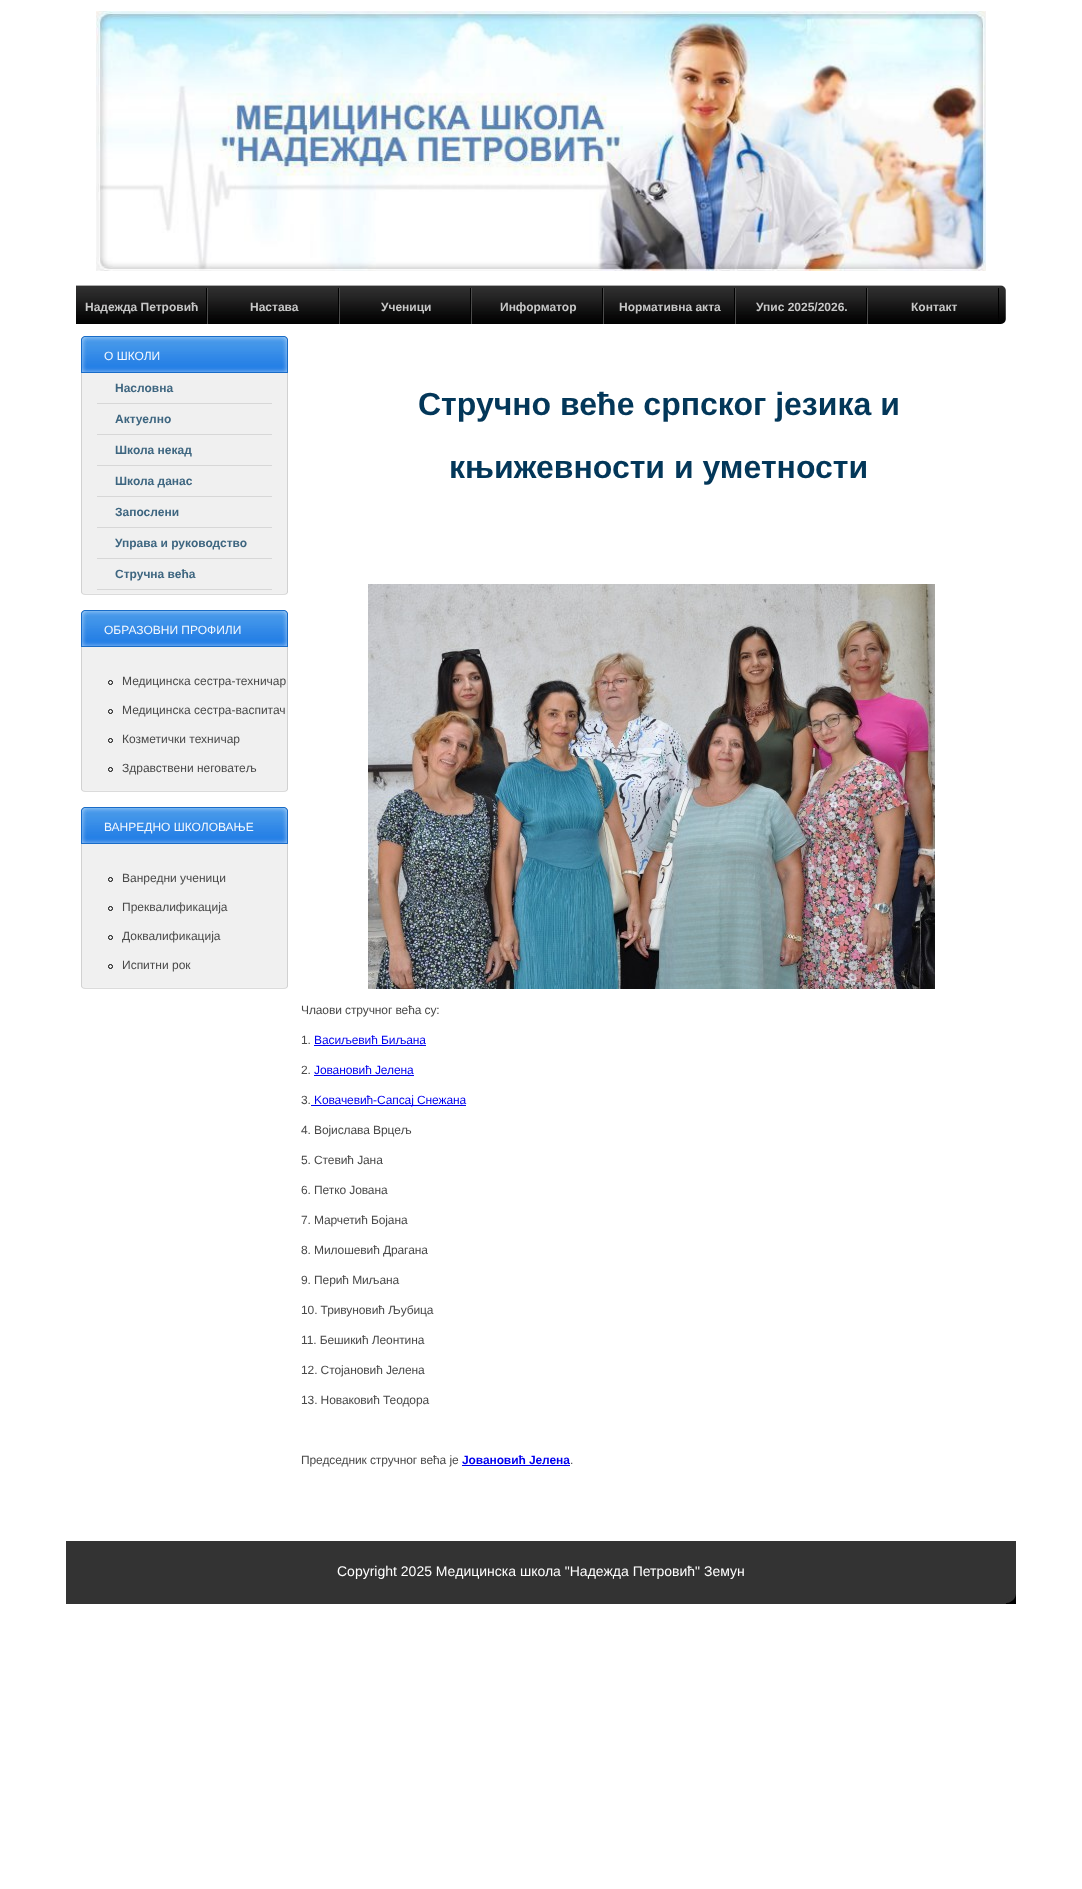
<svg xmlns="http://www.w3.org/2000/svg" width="1082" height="1889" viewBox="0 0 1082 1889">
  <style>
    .t1 { font: bold 12px Liberation Sans; fill: #c7c7c7; }
    .t2 { font: 12px Liberation Sans; fill: #f3f8fe; }
    .t3 { font: bold 12px Liberation Sans; fill: #3e6680; }
    .t4 { font: 12px Liberation Sans; fill: #494949; }
    .t5 { font: bold 32px Liberation Sans; fill: #033759; }
    .t6 { font: 12px Liberation Sans; letter-spacing: -0.1px; fill: #494949; }
    .t7 { font: 12px Liberation Sans; letter-spacing: -0.1px; fill: #00e; }
    .t8 { font: bold 12px Liberation Sans; letter-spacing: -0.1px; fill: #00e; }
    .t9 { font: 14px Liberation Sans; fill: #fff; }
  </style>
  <rect width="100%" height="100%" fill="#fff"/>
  <image x="96" y="11" width="890" height="260" href="images/1.png"/>
  <image x="76" y="285" width="923" height="39" href="images/2.png"/>
  <image x="206" y="288" width="2" height="36" href="images/3.png"/>
  <text x="85" y="311" class="t1">Надежда Петровић</text>
  <image x="338" y="288" width="2" height="36" href="images/3.png"/>
  <text x="250" y="311" class="t1">Настава</text>
  <image x="470" y="288" width="2" height="36" href="images/3.png"/>
  <text x="381" y="311" class="t1">Ученици</text>
  <image x="602" y="288" width="2" height="36" href="images/3.png"/>
  <text x="500" y="311" class="t1">Информатор</text>
  <image x="734" y="288" width="2" height="36" href="images/3.png"/>
  <text x="619" y="311" class="t1">Нормативна акта</text>
  <image x="866" y="288" width="2" height="36" href="images/3.png"/>
  <text x="756" y="311" class="t1">Упис 2025/2026.</text>
  <image x="998" y="288" width="1" height="36" href="images/4.png"/>
  <text x="911" y="311" class="t1">Контакт</text>
  <image x="999" y="285" width="7" height="39" href="images/5.png"/>
  <image x="81" y="336" width="207" height="37" href="images/6.png"/>
  <text x="104" y="360" class="t2">О ШКОЛИ</text>
  <rect x="82" y="373" width="205" height="217" fill="#f0f0f0"/>
  <rect x="287" y="373" width="1" height="217" fill="#d1d1d1"/>
  <rect x="81" y="373" width="1" height="217" fill="#d1d1d1"/>
  <rect x="97" y="403" width="175" height="1" fill="#d7d7d7"/>
  <text x="115" y="392" class="t3">Насловна</text>
  <rect x="97" y="434" width="175" height="1" fill="#d7d7d7"/>
  <text x="115" y="423" class="t3">Актуелно</text>
  <rect x="97" y="465" width="175" height="1" fill="#d7d7d7"/>
  <text x="115" y="454" class="t3">Школа некад</text>
  <rect x="97" y="496" width="175" height="1" fill="#d7d7d7"/>
  <text x="115" y="485" class="t3">Школа данас</text>
  <rect x="97" y="527" width="175" height="1" fill="#d7d7d7"/>
  <text x="115" y="516" class="t3">Запослени</text>
  <rect x="97" y="558" width="175" height="1" fill="#d7d7d7"/>
  <text x="115" y="547" class="t3">Управа и руководство</text>
  <rect x="97" y="589" width="175" height="1" fill="#d7d7d7"/>
  <text x="115" y="578" class="t3">Стручна већа</text>
  <image x="81" y="590" width="207" height="5" href="images/7.png"/>
  <image x="81" y="610" width="207" height="37" href="images/6.png"/>
  <text x="104" y="634" class="t2">ОБРАЗОВНИ ПРОФИЛИ</text>
  <rect x="82" y="647" width="205" height="140" fill="#f0f0f0"/>
  <rect x="287" y="647" width="1" height="140" fill="#d1d1d1"/>
  <rect x="81" y="647" width="1" height="140" fill="#d1d1d1"/>
  <circle cx="110.5" cy="682.5" r="2" fill="none" stroke="#000"/>
  <text x="122" y="685" class="t4">Медицинска сестра-техничар</text>
  <circle cx="110.5" cy="711.5" r="2" fill="none" stroke="#000"/>
  <text x="122" y="714" class="t4">Медицинска сестра-васпитач</text>
  <circle cx="110.5" cy="740.5" r="2" fill="none" stroke="#000"/>
  <text x="122" y="743" class="t4">Козметички техничар</text>
  <circle cx="110.5" cy="769.5" r="2" fill="none" stroke="#000"/>
  <text x="122" y="772" class="t4">Здравствени неговатељ</text>
  <image x="81" y="787" width="207" height="5" href="images/7.png"/>
  <image x="81" y="807" width="207" height="37" href="images/6.png"/>
  <text x="104" y="831" class="t2">ВАНРЕДНО ШКОЛОВАЊЕ</text>
  <rect x="82" y="844" width="205" height="140" fill="#f0f0f0"/>
  <rect x="287" y="844" width="1" height="140" fill="#d1d1d1"/>
  <rect x="81" y="844" width="1" height="140" fill="#d1d1d1"/>
  <circle cx="110.5" cy="879.5" r="2" fill="none" stroke="#000"/>
  <text x="122" y="882" class="t4">Ванредни ученици</text>
  <circle cx="110.5" cy="908.5" r="2" fill="none" stroke="#000"/>
  <text x="122" y="911" class="t4">Преквалификација</text>
  <circle cx="110.5" cy="937.5" r="2" fill="none" stroke="#000"/>
  <text x="122" y="940" class="t4">Доквалификација</text>
  <circle cx="110.5" cy="966.5" r="2" fill="none" stroke="#000"/>
  <text x="122" y="969" class="t4">Испитни рок</text>
  <image x="81" y="984" width="207" height="5" href="images/7.png"/>
  <text x="418" y="415" class="t5">Стручно веће српског језика и</text>
  <text x="449" y="478" class="t5">књижевности и уметности</text>
  <image x="368" y="584" width="567" height="405" href="images/8.png"/>
  <text x="301" y="1014" class="t6">Члаови стручног већа су:</text>
  <text x="301" y="1044" class="t6">1.</text>
  <text x="314" y="1044" class="t7">Васиљевић Биљана</text>
  <rect x="314" y="1045" width="112" height="1" fill="#00e"/>
  <text x="301" y="1074" class="t6">2.</text>
  <text x="314" y="1074" class="t7">Joвановић Јелена</text>
  <rect x="314" y="1075" width="100" height="1" fill="#00e"/>
  <text x="301" y="1104" class="t6">3.</text>
  <rect x="311" y="1105" width="155" height="1" fill="#00e"/>
  <text x="314" y="1104" class="t7">Koвачевић-Сапсај Снежана</text>
  <text x="301" y="1134" class="t6">4. Војислава Врцељ</text>
  <text x="301" y="1164" class="t6">5. Стевић Јана</text>
  <text x="301" y="1194" class="t6">6. Петко Јована</text>
  <text x="301" y="1224" class="t6">7. Maрчетић Бојана</text>
  <text x="301" y="1254" class="t6">8. Mилошевић Драгана</text>
  <text x="301" y="1284" class="t6">9. Перић Миљана</text>
  <text x="301" y="1314" class="t6">10. Тривуновић Љубица</text>
  <text x="301" y="1344" class="t6">11. Бешикић Леонтина</text>
  <text x="301" y="1374" class="t6">12. Стојановић Јелена</text>
  <text x="301" y="1404" class="t6">13. Новаковић Теодора</text>
  <text x="301" y="1464" class="t6">Председник стручног већа je</text>
  <text x="462" y="1464" class="t8">Joвановић Јелена</text>
  <rect x="462" y="1465" width="108" height="1" fill="#00e"/>
  <text x="570" y="1464" class="t6">.</text>
  <rect x="66" y="1541" width="950" height="63" fill="#333"/>
  <text x="337" y="1576" class="t9">Copyright 2025 Meдицинска школа "Надежда Петровић" Земун</text>
  <image x="1006" y="1594" width="10" height="10" href="images/9.png"/>
</svg>
